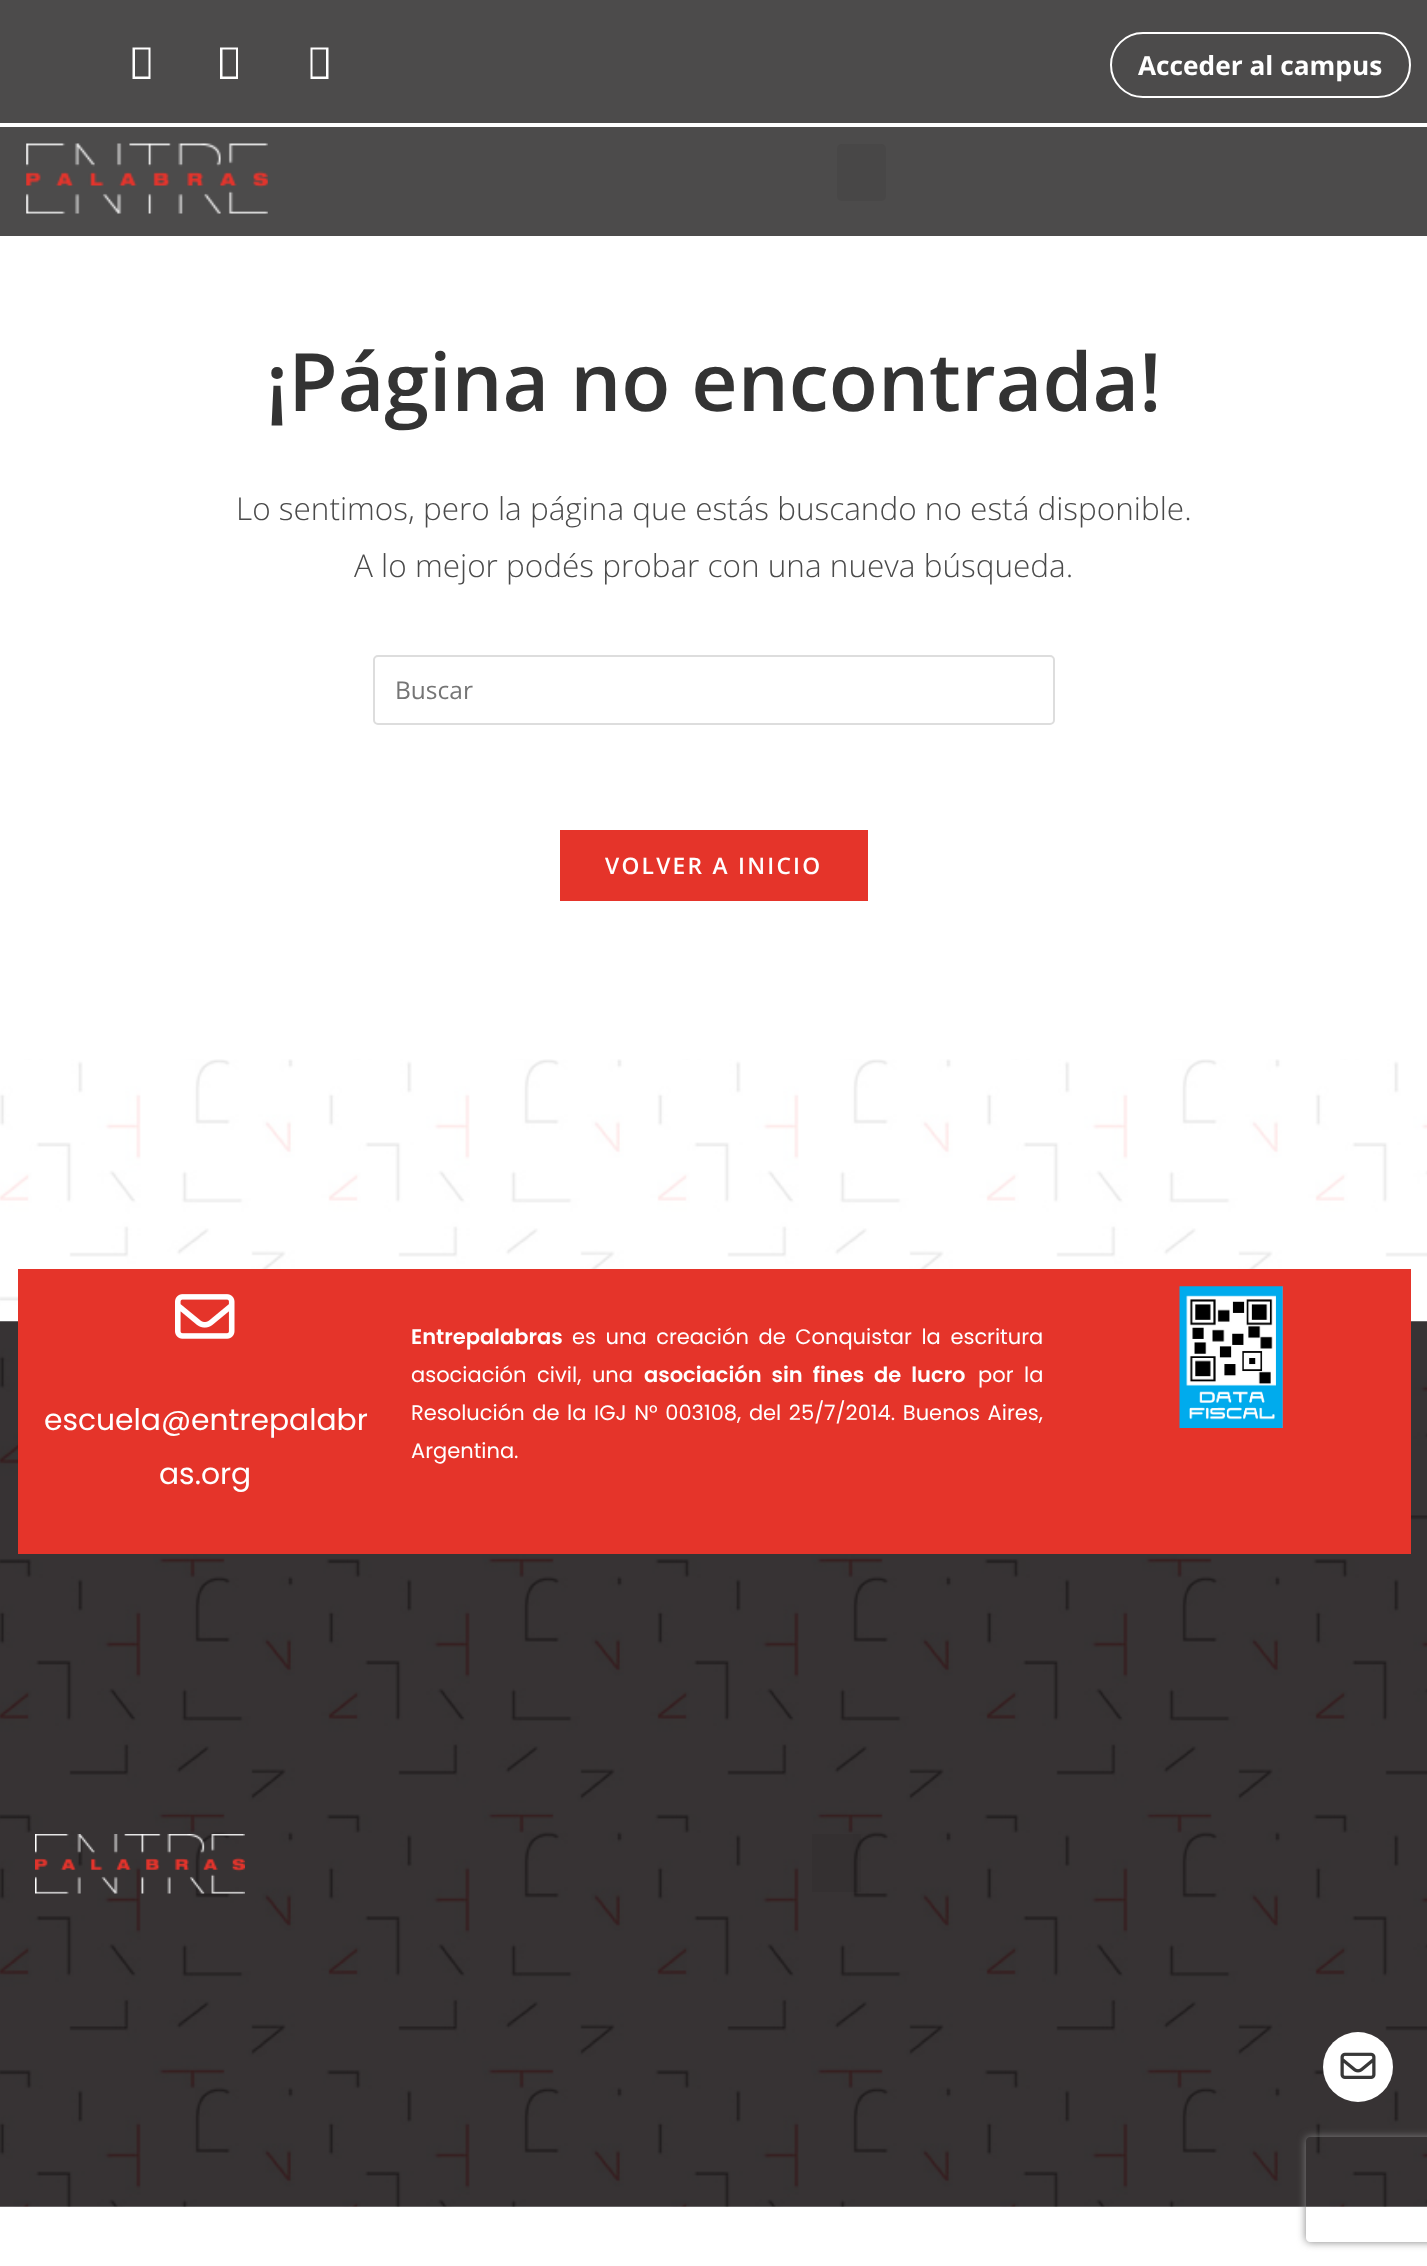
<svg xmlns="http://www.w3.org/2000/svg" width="1427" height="2266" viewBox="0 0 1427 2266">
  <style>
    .t1 { font: bold 26.25px Open Sans; fill: #fff; }
    .t2 { font: 600 80.5px Open Sans; fill: #333; }
    .t3 { font: 300 31.5px Open Sans; fill: #4a4a4a; }
    .t4 { font: 24.5px Open Sans; fill: #757575; }
    .t5 { font: 600 22.75px Open Sans; letter-spacing: 2.25px; fill: #fff; }
    .t6 { font: 29.75px Poppins; fill: #fff; }
    .t7 { font: 600 21px Poppins; fill: #fff; }
    .t8 { font: 21px Poppins; fill: #fff; }
  </style>
  <defs>
    <clipPath id="clip1"><path d="M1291 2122H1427V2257H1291ZM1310 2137H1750C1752 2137 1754 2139 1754 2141V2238C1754 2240 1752 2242 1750 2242H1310C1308 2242 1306 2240 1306 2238V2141C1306 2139 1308 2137 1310 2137Z" clip-rule="evenodd"/></clipPath>
  </defs>
  <rect width="100%" height="100%" fill="#fff"/>
  <rect x="0" y="0" width="1427" height="123" fill="#4c4b4b"/>
  <path d="M132.5 79V47.5H150.5V79ZM135 76.5H148.5V49.5H135Z" fill="#fff"/>
  <path d="M220 79V47.5H238V79ZM222.5 76.5H236V49.5H222.5Z" fill="#fff"/>
  <path d="M310.5 79V47.5H328.5V79ZM312.5 76.5H326V49.5H312.5Z" fill="#fff"/>
  <rect x="1111" y="33" width="299" height="64" rx="32" fill="none" stroke="#fff" stroke-width="2"/>
  <text x="1138" y="75" class="t1">Acceder al campus</text>
  <rect x="0" y="127" width="1427" height="109" fill="#4c4b4b"/>
  <image x="26" y="143" width="242" height="71" href="images/1.png"/>
  <rect x="837" y="144" width="49" height="57" rx="5" fill="#484747"/>
  <text x="266" y="411" class="t2">¡Página no encontrada!</text>
  <text x="236" y="520" class="t3">Lo sentimos, pero la página que estás buscando no está disponible.</text>
  <text x="354" y="577" class="t3">A lo mejor podés probar con una nueva búsqueda.</text>
  <rect x="374" y="656" width="680" height="68" rx="4" fill="none" stroke="#ddd" stroke-width="2"/>
  <text x="395" y="699" class="t4">Buscar</text>
  <rect x="560" y="830" width="308" height="71" fill="#e5342a"/>
  <text x="605" y="874" class="t5">VOLVER A INICIO</text>
  <image x="0" y="1059" width="1427" height="1148" href="images/2.png"/>
  <image x="0" y="1321" width="1427" height="886" href="images/3.png"/>
  <rect x="18" y="1269" width="1393" height="285" fill="#e5342a"/>
  <image x="175" y="1294" width="60" height="45" href="images/4.png"/>
  <text x="44" y="1430" class="t6">escuela@entrepalabr</text>
  <text x="159" y="1484" class="t6">as.org</text>
  <text x="411" y="1344" class="t7">Entrepalabras</text>
  <text x="572" y="1344" word-spacing="4" class="t8">es una creación de Conquistar la escritura</text>
  <text x="411" y="1382" word-spacing="5" class="t8">asociación civil, una</text>
  <text x="644" y="1382" word-spacing="5" class="t7">asociación sin fines de lucro</text>
  <text x="978" y="1382" word-spacing="5" class="t8">por la</text>
  <text x="411" y="1420" word-spacing="2" class="t8">Resolución de la IGJ N° 003108, del 25/7/2014. Buenos Aires,</text>
  <text x="411" y="1458" class="t8">Argentina.</text>
  <image x="1179" y="1286" width="104" height="142" href="images/5.png"/>
  <image x="35" y="1834" width="210" height="60" href="images/6.png"/>
  <rect x="812" y="1834" width="49" height="58" fill="#0000000d"/>
  <circle cx="1358" cy="2067" r="35" fill="#fff"/>
  <image x="1340" y="2052" width="36" height="27" href="images/7.png"/>
  <g clip-path="url(#clip1)">
    <rect x="1306" y="2137" width="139" height="105" rx="4" fill="#808080" filter="blur(4.5px)"/>
  </g>
</svg>
